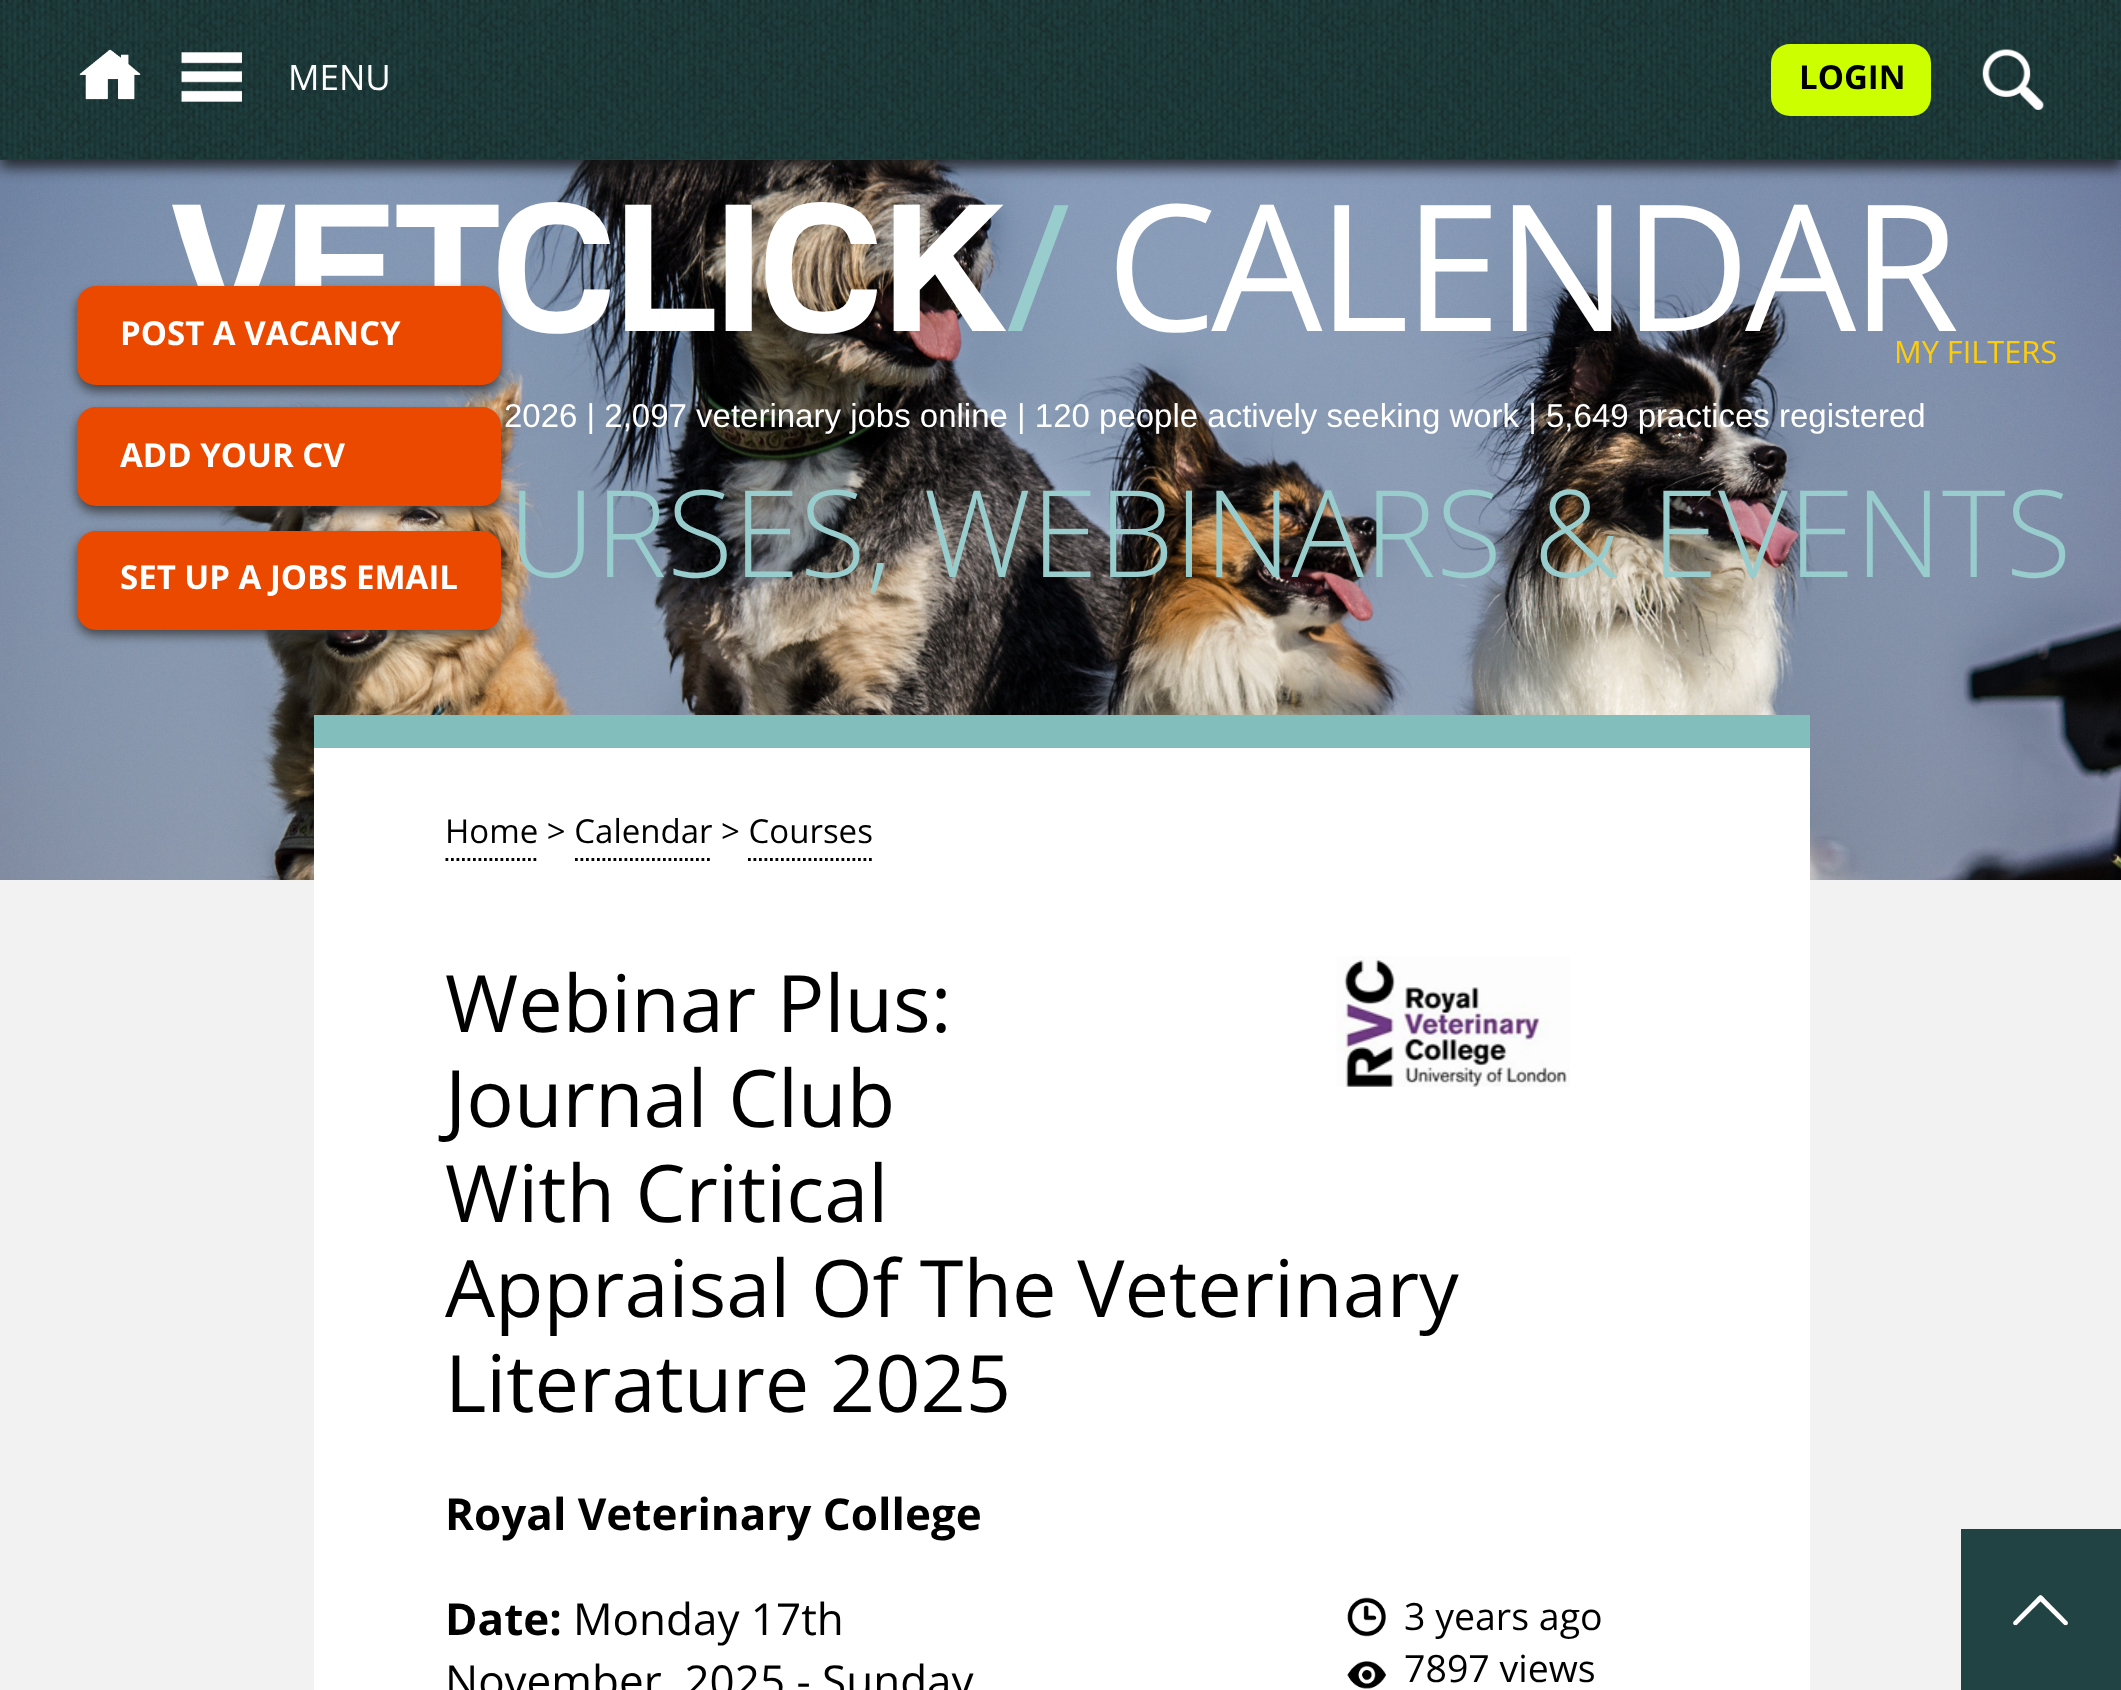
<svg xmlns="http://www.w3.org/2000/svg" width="2121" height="1690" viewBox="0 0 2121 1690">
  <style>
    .t1 { font: 35px Open Sans; fill: #fff; }
    .t2 { font: bold 33px Open Sans; fill: #000; }
    .t3 { font: bold 176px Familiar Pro; letter-spacing: -5.5px; fill: #fff; }
    .t4 { font: 176px Open Sans; letter-spacing: -5.5px; fill: #9cc; }
    .t5 { font: 176px Open Sans; letter-spacing: -5.5px; fill: #fff; }
    .t6 { font: 33px Liberation Sans; fill: #fff; }
    .t7 { font: 300 121px Open Sans; fill: #9cc; }
    .t8 { font: bold 33px Open Sans; fill: #fff; }
    .t9 { font: 30.75px Open Sans; fill: #fecd09; }
    .t10 { font: 33px Open Sans; fill: #000; }
    .t11 { font: 79.25px Open Sans; fill: #000; }
    .t12 { font: bold 44px Open Sans; fill: #000; }
    .t13 { font: 44px Open Sans; fill: #000; }
    .t14 { font: 37.5px Open Sans; fill: #000; }
  </style>
  <rect width="100%" height="100%" fill="#f2f2f2"/>
  <image x="0" y="160" width="2121" height="720" href="images/5.png"/>
  <rect x="0" y="8" width="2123" height="160" fill="#141414cc" filter="blur(7px)"/>
  <rect x="0" y="0" width="2121" height="160" fill="#214343"/>
  <image x="0" y="0" width="2121" height="160" href="images/1.png"/>
  <image x="79" y="49" width="62" height="51" href="images/2.png"/>
  <image x="181" y="52" width="61" height="50" href="images/3.png"/>
  <text x="288" y="90" class="t1">MENU</text>
  <rect x="1771" y="44" width="160" height="72" rx="19" fill="#cf0"/>
  <text x="1799" y="89" class="t2">LOGIN</text>
  <image x="1982" y="48" width="62" height="62" href="images/4.png"/>
  <text x="170" y="331" class="t3">VETCLICK</text>
  <text x="1006" y="331" class="t4">/</text>
  <text x="1106" y="331" class="t5">CALENDAR</text>
  <text x="504" y="427" class="t6">2026 | 2,097 veterinary jobs online | 120 people actively seeking work | 5,649 practices registered</text>
  <text x="508" y="577" class="t7">URSES, WEBINARS &amp; EVENTS</text>
  <rect x="77" y="292" width="424" height="99" rx="19" fill="#323232cc" filter="blur(5.5px)"/>
  <rect x="77" y="286" width="424" height="99" rx="19" fill="#eb4800"/>
  <text x="120" y="345" class="t8">POST A VACANCY</text>
  <rect x="77" y="413" width="424" height="99" rx="19" fill="#323232cc" filter="blur(5.5px)"/>
  <rect x="77" y="407" width="424" height="99" rx="19" fill="#eb4800"/>
  <text x="120" y="467" class="t8">ADD YOUR CV</text>
  <rect x="77" y="536" width="424" height="99" rx="19" fill="#323232cc" filter="blur(5.5px)"/>
  <rect x="77" y="531" width="424" height="99" rx="19" fill="#eb4800"/>
  <text x="120" y="589" class="t8">SET UP A JOBS EMAIL</text>
  <text x="1894" y="363" class="t9">MY FILTERS</text>
  <rect x="314" y="748" width="1496" height="942" fill="#fff"/>
  <rect x="314" y="715" width="1496" height="33" fill="#81bebc"/>
  <text x="445" y="843" class="t10">Home &gt; Calendar &gt; Courses</text>
  <path d="M445.5 859.5H539" fill="none" stroke="#000" stroke-width="2.8" stroke-dasharray="2.75 2.75"/>
  <path d="M575 859.5H712" fill="none" stroke="#000" stroke-width="2.8" stroke-dasharray="2.75 2.75"/>
  <path d="M748 859.5H874.5" fill="none" stroke="#000" stroke-width="2.8" stroke-dasharray="2.75 2.75"/>
  <image x="1336" y="956" width="234" height="131" href="images/6.png"/>
  <text x="445" y="1032" class="t11">Webinar Plus:</text>
  <text x="445" y="1127" class="t11">Journal Club</text>
  <text x="445" y="1222" class="t11">With Critical</text>
  <text x="445" y="1317" class="t11">Appraisal Of The Veterinary</text>
  <text x="445" y="1412" class="t11">Literature 2025</text>
  <text x="445" y="1530" class="t12">Royal Veterinary College</text>
  <text x="445" y="1635" class="t12">Date:</text>
  <text x="573" y="1635" class="t13">Monday 17th</text>
  <text x="445" y="1697" class="t13">November, 2025 - Sunday</text>
  <image x="1347" y="1597" width="39" height="40" href="images/7.png"/>
  <text x="1404" y="1630" class="t14">3 years ago</text>
  <image x="1347" y="1661" width="39" height="28" href="images/8.png"/>
  <text x="1404" y="1682" class="t14">7897 views</text>
  <rect x="1961" y="1529" width="160" height="161" fill="#214343"/>
  <image x="2013" y="1595" width="55" height="31" href="images/9.png"/>
</svg>
